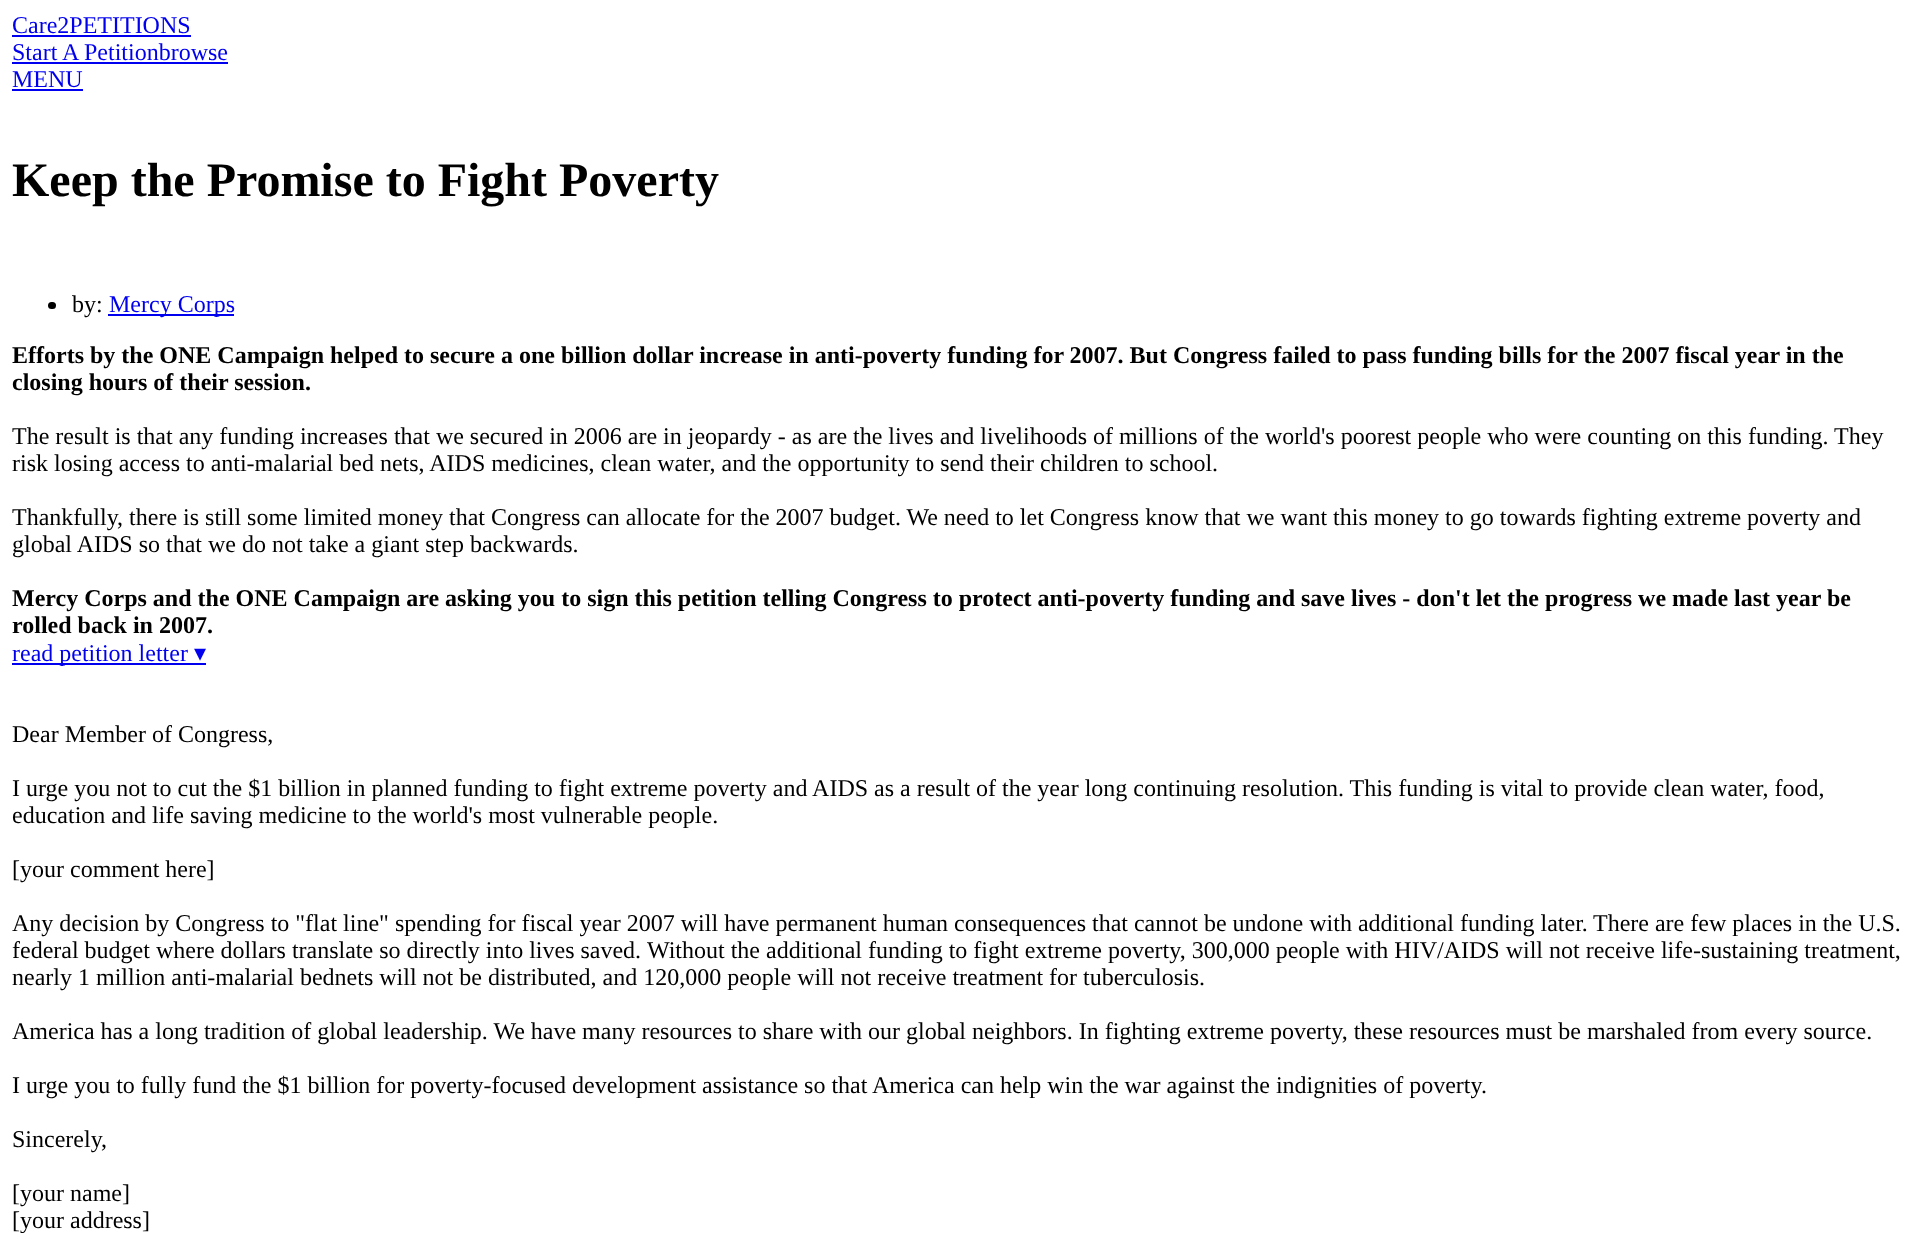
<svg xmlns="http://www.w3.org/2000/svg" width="1915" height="1233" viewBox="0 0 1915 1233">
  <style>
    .t1 { font: 24px Liberation Serif; fill: #00e; }
    .t2 { font: bold 48px Liberation Serif; fill: #000; }
    .t3 { font: 24px Liberation Serif; fill: #000; }
    .t4 { font: bold 24px Liberation Serif; fill: #000; }
    .t5 { font: 24px DejaVu Sans; fill: #00e; }
  </style>
  <rect width="100%" height="100%" fill="#fff"/>
  <text x="12" y="33" class="t1">Care2PETITIONS</text>
  <rect x="12" y="35" width="179" height="2" fill="#00e"/>
  <text x="12" y="60" class="t1">Start A Petitionbrowse</text>
  <rect x="12" y="62" width="216" height="2" fill="#00e"/>
  <text x="12" y="87" class="t1">MENU</text>
  <rect x="12" y="89" width="71" height="2" fill="#00e"/>
  <text x="12" y="196" class="t2">Keep the Promise to Fight Poverty</text>
  <rect x="48" y="302" width="8" height="7" rx="3.5" fill="#000"/>
  <text x="72" y="312" class="t3">by:</text>
  <rect x="108" y="314" width="126" height="2" fill="#00e"/>
  <text x="109" y="312" class="t1">Mercy Corps</text>
  <text x="12" y="363" class="t4">Efforts by the ONE Campaign helped to secure a one billion dollar increase in anti-poverty funding for 2007. But Congress failed to pass funding bills for the 2007 fiscal year in the</text>
  <text x="12" y="390" class="t4">closing hours of their session.</text>
  <text x="12" y="444" class="t3">The result is that any funding increases that we secured in 2006 are in jeopardy - as are the lives and livelihoods of millions of the world's poorest people who were counting on this funding. They</text>
  <text x="12" y="471" class="t3">risk losing access to anti-malarial bed nets, AIDS medicines, clean water, and the opportunity to send their children to school.</text>
  <text x="12" y="525" class="t3">Thankfully, there is still some limited money that Congress can allocate for the 2007 budget. We need to let Congress know that we want this money to go towards fighting extreme poverty and</text>
  <text x="12" y="552" class="t3">global AIDS so that we do not take a giant step backwards.</text>
  <text x="12" y="606" class="t4">Mercy Corps and the ONE Campaign are asking you to sign this petition telling Congress to protect anti-poverty funding and save lives - don't let the progress we made last year be</text>
  <text x="12" y="633" class="t4">rolled back in 2007.</text>
  <rect x="12" y="663" width="194" height="2" fill="#00e"/>
  <text x="12" y="661" class="t1">read petition letter</text>
  <text x="194" y="661" class="t5">▾</text>
  <text x="12" y="742" class="t3">Dear Member of Congress,</text>
  <text x="12" y="796" class="t3">I urge you not to cut the $1 billion in planned funding to fight extreme poverty and AIDS as a result of the year long continuing resolution. This funding is vital to provide clean water, food,</text>
  <text x="12" y="823" class="t3">education and life saving medicine to the world's most vulnerable people.</text>
  <text x="12" y="877" class="t3">[your comment here]</text>
  <text x="12" y="931" class="t3">Any decision by Congress to "flat line" spending for fiscal year 2007 will have permanent human consequences that cannot be undone with additional funding later.</text>
  <text x="1593" y="931" class="t3">There are few places in the U.S.</text>
  <text x="12" y="958" class="t3">federal budget where dollars translate so directly into lives saved.</text>
  <text x="647" y="958" class="t3">Without the additional funding to fight extreme poverty, 300,000 people with HIV/AIDS will not receive life-sustaining treatment,</text>
  <text x="12" y="985" class="t3">nearly 1 million anti-malarial bednets will not be distributed, and 120,000 people will not receive treatment for tuberculosis.</text>
  <text x="12" y="1039" class="t3">America has a long tradition of global leadership. We have many resources to share with our global neighbors. In fighting extreme poverty, these resources must be marshaled from every source.</text>
  <text x="12" y="1093" class="t3">I urge you to fully fund the $1 billion for poverty-focused development assistance so that America can help win the war against the indignities of poverty.</text>
  <text x="12" y="1147" class="t3">Sincerely,</text>
  <text x="12" y="1201" class="t3">[your name]</text>
  <text x="12" y="1228" class="t3">[your address]</text>
</svg>
